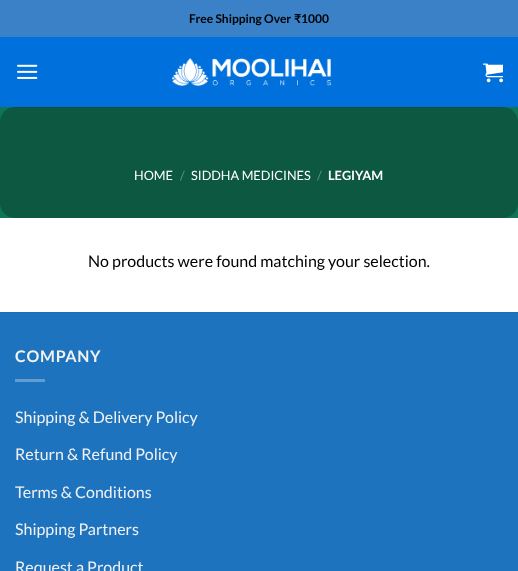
<svg xmlns="http://www.w3.org/2000/svg" width="518" height="571" viewBox="0 0 518 571">
  <style>
    .t1 { font: bold 12px Lato; fill: #000; }
    .t2 { font: bold 12px 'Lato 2'; fill: #000; }
    .t3 { font: 12.75px Lato; fill: #fff; }
    .t4 { font: 12.75px Lato; fill: #619284; }
    .t5 { font: bold 12.75px Lato; fill: #fff; }
    .t6 { font: 16px Lato; fill: #000; }
    .t7 { font: bold 16px Lato; letter-spacing: 0.75px; fill: #f1f1f1; }
    .t8 { font: 16px Lato; fill: #f1f1f1; }
  </style>
  <rect width="100%" height="100%" fill="#fff"/>
  <rect x="0" y="0" width="518" height="37" fill="#3b81c7"/>
  <text x="189" y="23" class="t1">Free Shipping Over</text>
  <text x="294" y="23" class="t2">₹</text>
  <text x="301" y="23" class="t1">1000</text>
  <rect x="0" y="37" width="518" height="70" fill="#0071dc"/>
  <image x="17" y="64" width="21" height="15" href="images/1.png"/>
  <image x="172" y="58" width="159" height="28" href="images/2.png"/>
  <image x="483" y="63" width="20" height="20" href="images/3.png"/>
  <rect x="0" y="107" width="518" height="111" fill="#107557"/>
  <rect x="0" y="107" width="518" height="111" rx="15" fill="#0c5841"/>
  <rect x="15" y="107" width="488" height="1" fill="#0b4f3b"/>
  <text x="134" y="180" class="t3">HOME</text>
  <text x="180" y="180" class="t4">/</text>
  <text x="191" y="180" class="t3">SIDDHA MEDICINES</text>
  <text x="317" y="180" class="t4">/</text>
  <text x="328" y="180" class="t5">LEGIYAM</text>
  <text x="88" y="267" class="t6">No products were found matching your selection.</text>
  <rect x="0" y="313" width="518" height="258" fill="#1e73be"/>
  <rect x="0" y="312" width="518" height="1" fill="#1d6db5"/>
  <text x="15" y="362" class="t7">COMPANY</text>
  <rect x="15" y="379" width="30" height="3" fill="#629dd2"/>
  <text x="15" y="423" class="t8">Shipping &amp; Delivery Policy</text>
  <text x="15" y="460" class="t8">Return &amp; Refund Policy</text>
  <text x="15" y="498" class="t8">Terms &amp; Conditions</text>
  <text x="15" y="535" class="t8">Shipping Partners</text>
  <text x="15" y="573" class="t8">Request a Product</text>
</svg>
